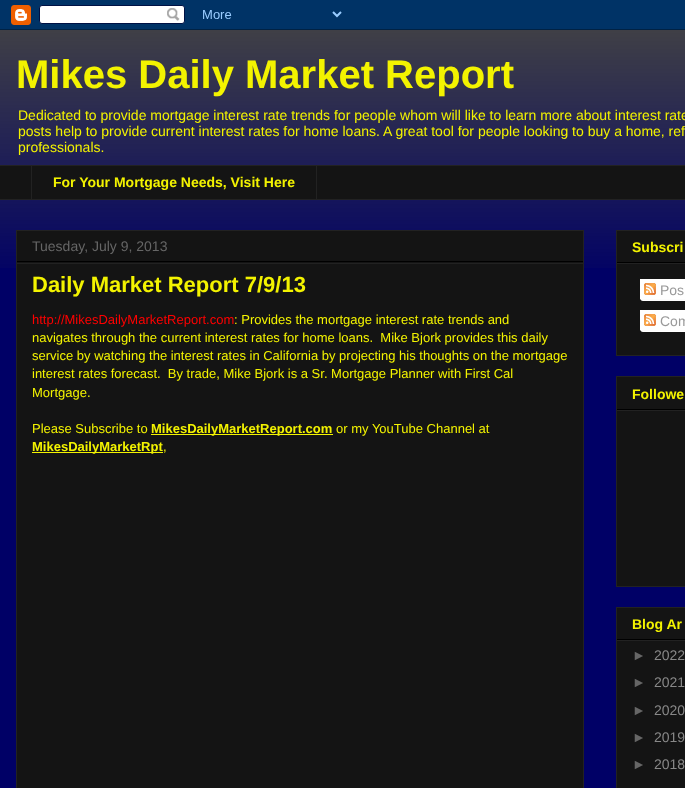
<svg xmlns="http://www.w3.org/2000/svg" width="685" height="788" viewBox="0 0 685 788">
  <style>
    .t1 { font: bold 40px Liberation Sans; fill: #f3f300; }
    .t2 { font: 14px Liberation Sans; fill: #f3f300; }
    .t3 { font: bold 14px Liberation Sans; fill: #f3f300; }
    .t4 { font: 14px Liberation Sans; fill: #666; }
    .t5 { font: bold 22px Liberation Sans; fill: #f3f300; }
    .t6 { font: 13px Liberation Sans; fill: #f00; }
    .t7 { font: 13px Liberation Sans; fill: #f3f300; }
    .t8 { font: bold 13px Liberation Sans; fill: #f3f300; }
    .t9 { font: 14px Liberation Sans; fill: #999; }
    .t10 { font: 14px Liberation Sans; fill: #888; }
  </style>
  <rect width="100%" height="100%" fill="#006"/>
  <image x="0" y="0" width="685" height="30" href="images/1.png"/>
  <image x="0" y="30" width="685" height="238" href="images/2.png"/>
  <text x="16" y="88" class="t1">Mikes Daily Market Report</text>
  <text x="18" y="120" class="t2">Dedicated to provide mortgage interest rate trends for people whom will like to learn more about interest rate</text>
  <text x="18" y="136" class="t2">posts help to provide current interest rates for home loans. A great tool for people looking to buy a home, ref</text>
  <text x="18" y="152" class="t2">professionals.</text>
  <rect x="0" y="166" width="685" height="33" fill="#141414"/>
  <rect x="0" y="165" width="685" height="1" fill="#222"/>
  <rect x="31.5" y="165.5" width="285" height="34" fill="none" stroke="#222"/>
  <text x="53" y="187" class="t3">For Your Mortgage Needs, Visit Here</text>
  <rect x="0" y="199" width="685" height="1" fill="#222"/>
  <rect x="16.5" y="230.5" width="567" height="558" fill="#141414" stroke="#222"/>
  <rect x="17" y="261" width="566" height="1" fill="#000"/>
  <text x="32" y="251" class="t4">Tuesday, July 9, 2013</text>
  <rect x="17" y="263" width="566" height="1" fill="#222"/>
  <text x="32" y="292" class="t5">Daily Market Report 7/9/13</text>
  <text x="32" y="324" class="t6">http://MikesDailyMarketReport.com</text>
  <text x="234" y="324" class="t7">: Provides the mortgage interest rate trends and</text>
  <text x="32" y="342" class="t7" xml:space="preserve">navigates through the current interest rates for home loans.  Mike Bjork provides this daily</text>
  <text x="32" y="360" class="t7">service by watching the interest rates in California by projecting his thoughts on the mortgage</text>
  <text x="32" y="378" class="t7" xml:space="preserve">interest rates forecast.  By trade, Mike Bjork is a Sr. Mortgage Planner with First Cal</text>
  <text x="32" y="397" class="t7">Mortgage.</text>
  <text x="32" y="433" class="t7">Please Subscribe to</text>
  <rect x="151" y="434" width="182" height="1" fill="#f3f300"/>
  <text x="151" y="433" class="t8">MikesDailyMarketReport.com</text>
  <text x="336" y="433" class="t7">or my YouTube Channel at</text>
  <rect x="32" y="452" width="131" height="1" fill="#f3f300"/>
  <text x="32" y="451" class="t8">MikesDailyMarketRpt</text>
  <text x="163" y="451" class="t7">,</text>
  <rect x="616.5" y="230.5" width="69" height="125" fill="#141414" stroke="#222"/>
  <rect x="617" y="262" width="68" height="1" fill="#000"/>
  <text x="632" y="252" class="t3">Subscri</text>
  <rect x="617" y="263" width="68" height="1" fill="#222"/>
  <rect x="640" y="279" width="45" height="20" fill="#fff"/>
  <image x="644" y="283" width="12" height="12" href="images/3.png"/>
  <text x="660" y="295" class="t9">Pos</text>
  <image x="640" y="299" width="45" height="2" href="images/4.png"/>
  <rect x="640" y="310" width="45" height="20" fill="#fff"/>
  <image x="644" y="314" width="12" height="12" href="images/3.png"/>
  <text x="660" y="326" class="t9">Com</text>
  <image x="640" y="330" width="45" height="2" href="images/4.png"/>
  <rect x="616.5" y="376.5" width="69" height="210" fill="#141414" stroke="#222"/>
  <rect x="617" y="409" width="68" height="1" fill="#000"/>
  <text x="632" y="399" class="t3">Followe</text>
  <rect x="617" y="410" width="68" height="1" fill="#222"/>
  <rect x="616.5" y="607.5" width="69" height="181" fill="#141414" stroke="#222"/>
  <rect x="617" y="639" width="68" height="1" fill="#000"/>
  <text x="632" y="629" class="t3">Blog Ar</text>
  <rect x="617" y="640" width="68" height="1" fill="#222"/>
  <text x="632" y="660" class="t4">►</text>
  <text x="654" y="660" class="t10">2022</text>
  <text x="632" y="687" class="t4">►</text>
  <text x="654" y="687" class="t10">2021</text>
  <text x="632" y="715" class="t4">►</text>
  <text x="654" y="715" class="t10">2020</text>
  <text x="632" y="742" class="t4">►</text>
  <text x="654" y="742" class="t10">2019</text>
  <text x="632" y="769" class="t4">►</text>
  <text x="654" y="769" class="t10">2018</text>
</svg>
